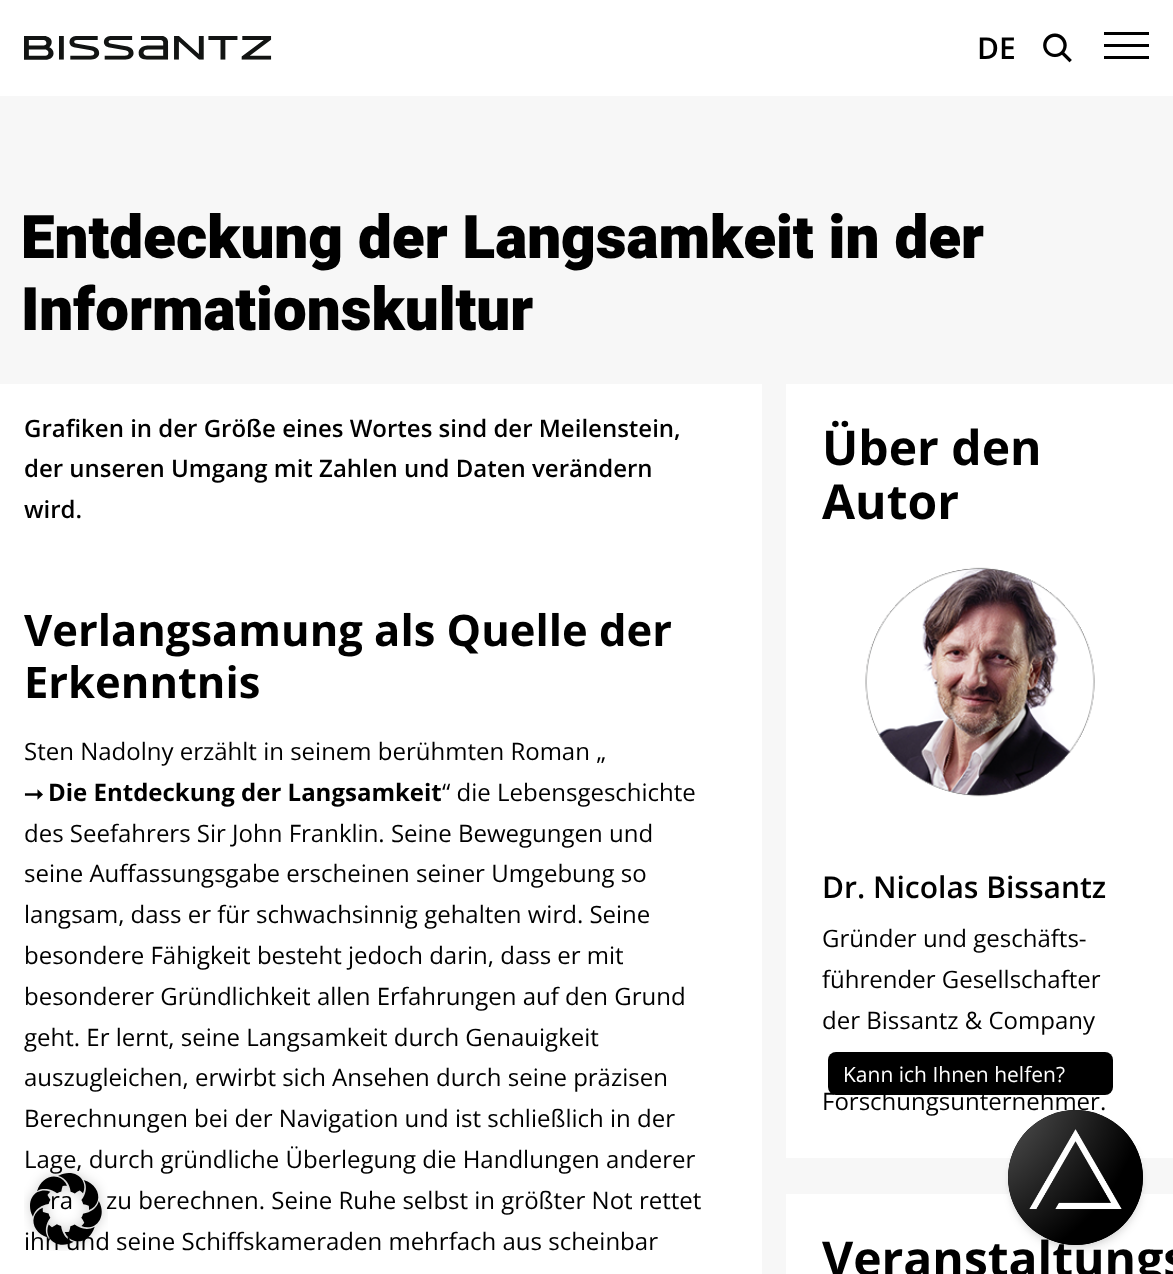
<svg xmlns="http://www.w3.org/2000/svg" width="1173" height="1274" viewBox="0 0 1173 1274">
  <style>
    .t1 { font: 600 30px Open Sans; fill: #000; }
    .t2 { font: 900 60px Heebo; fill: #000; }
    .t3 { font: 600 24px Open Sans; fill: #000; }
    .t4 { font: bold 43.5px Open Sans; fill: #000; }
    .t5 { font: 24px Open Sans; fill: #000; }
    .t6 { font: bold 24px FreeSans; fill: #000; }
    .t7 { font: bold 24px Open Sans; fill: #000; }
    .t8 { font: bold 48px Open Sans; fill: #000; }
    .t9 { font: 21px Open Sans; fill: #fff; }
  </style>
  <rect width="100%" height="100%" fill="#f7f7f7"/>
  <rect x="0" y="0" width="1173" height="96" fill="#fff"/>
  <image x="24" y="36" width="248" height="24" href="images/1.png"/>
  <text x="977" y="59" class="t1">DE</text>
  <image x="1043" y="33" width="29" height="30" href="images/2.png"/>
  <rect x="1104" y="56" width="45" height="3" fill="#000"/>
  <rect x="1104" y="32" width="45" height="3" fill="#000"/>
  <rect x="1104" y="44" width="45" height="3" fill="#000"/>
  <text x="21" y="258" class="t2">Entdeckung der Langsamkeit in der</text>
  <text x="21" y="330" class="t2">Informationskultur</text>
  <rect x="0" y="384" width="762" height="890" fill="#fff"/>
  <text x="24" y="437" class="t3">Grafiken in der Größe eines Wortes sind der Meilenstein,</text>
  <text x="24" y="477" class="t3">der unseren Umgang mit Zahlen und Daten verändern</text>
  <text x="24" y="518" class="t3">wird.</text>
  <text x="24" y="646" class="t4">Verlangsamung als Quelle der</text>
  <text x="24" y="698" class="t4">Erkenntnis</text>
  <text x="24" y="760" class="t5">Sten Nadolny erzählt in seinem berühmten Roman „</text>
  <text x="24" y="801" class="t6">⭢</text>
  <text x="48" y="801" class="t7">Die Entdeckung der Langsamkeit</text>
  <text x="442" y="801" class="t5">“ die Lebensgeschichte</text>
  <text x="24" y="842" class="t5">des Seefahrers Sir John Franklin. Seine Bewegungen und</text>
  <text x="24" y="882" class="t5">seine Auffassungsgabe erscheinen seiner Umgebung so</text>
  <text x="24" y="923" class="t5">langsam, dass er für schwachsinnig gehalten wird. Seine</text>
  <text x="24" y="964" class="t5">besondere Fähigkeit besteht jedoch darin, dass er mit</text>
  <text x="24" y="1005" class="t5">besonderer Gründlichkeit allen Erfahrungen auf den Grund</text>
  <text x="24" y="1046" class="t5">geht. Er lernt, seine Langsamkeit durch Genauigkeit</text>
  <text x="24" y="1086" class="t5">auszugleichen, erwirbt sich Ansehen durch seine präzisen</text>
  <text x="24" y="1127" class="t5">Berechnungen bei der Navigation und ist schließlich in der</text>
  <text x="24" y="1168" class="t5">Lage, durch gründliche Überlegung die Handlungen anderer</text>
  <text x="50" y="1209" class="t5">ra</text>
  <text x="106" y="1209" class="t5">zu berechnen. Seine Ruhe selbst in größter Not rettet</text>
  <text x="24" y="1250" class="t5">ihn und seine Schiffskameraden mehrfach aus scheinbar</text>
  <rect x="786" y="384" width="387" height="774" fill="#fff"/>
  <text x="822" y="465" class="t8">Über den</text>
  <text x="822" y="519" class="t8">Autor</text>
  <image x="865" y="567" width="230" height="230" href="images/3.png"/>
  <text x="822" y="898" class="t1">Dr. Nicolas Bissantz</text>
  <text x="822" y="947" class="t5">Gründer und geschäfts-</text>
  <text x="822" y="988" class="t5">führender Gesellschafter</text>
  <text x="822" y="1029" class="t5">der Bissantz &amp; Company</text>
  <text x="822" y="1110" class="t5">Forschungsunternehmer.</text>
  <rect x="786" y="1194" width="387" height="80" fill="#fff"/>
  <text x="822" y="1276" class="t8">Veranstaltungs</text>
  <rect x="828" y="1052" width="285" height="43" rx="8" fill="#000"/>
  <text x="843" y="1082" class="t9">Kann ich Ihnen helfen?</text>
  <rect x="1011" y="1116" width="129" height="129" rx="64.5" fill="#0000001a" filter="blur(3px)"/>
  <rect x="1010" y="1118" width="132" height="132" rx="66" fill="#0000001a" filter="blur(4.5px)"/>
  <circle cx="1075.5" cy="1177.5" r="67.5" fill="#000"/>
  <image x="1008" y="1110" width="135" height="135" href="images/4.png"/>
  <image x="24" y="1167" width="84" height="84" href="images/5.png"/>
</svg>
